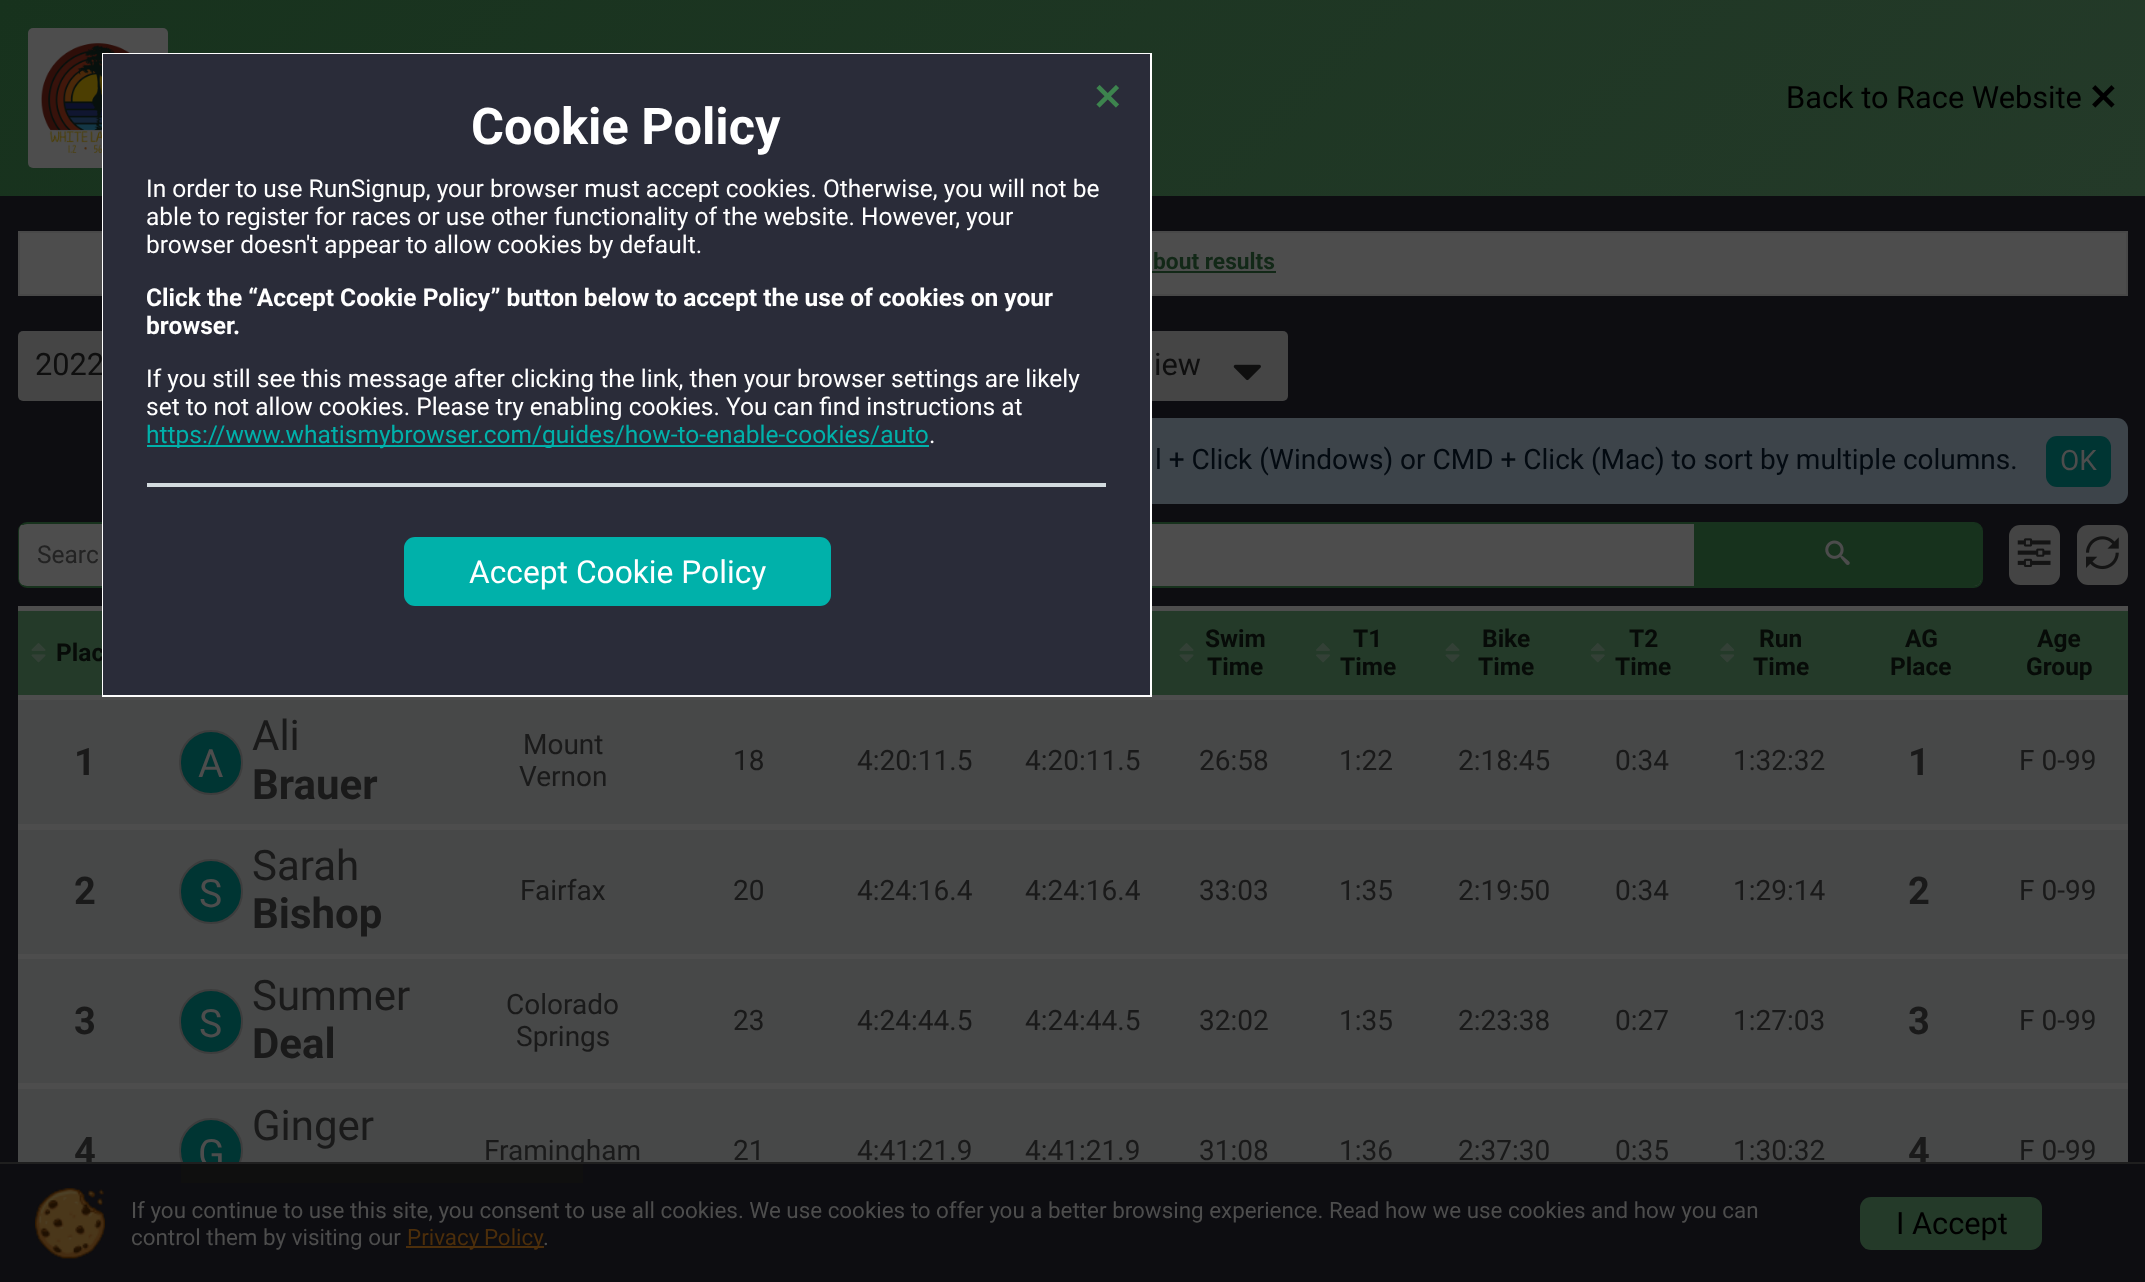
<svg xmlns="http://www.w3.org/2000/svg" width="2145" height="1282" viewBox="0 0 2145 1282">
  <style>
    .t1 { font: 30.75px Roboto; fill: #000; }
    .t2 { font: bold 22.75px Roboto; fill: #122817; }
    .t3 { font: 30.75px Roboto; fill: #0f0f0f; }
    .t4 { font: 28px Roboto; fill: #030a11; }
    .t5 { font: 28px Roboto; fill: #4d4d4d; }
    .t6 { font: 24.5px Roboto; fill: #232323; }
    .t7 { font: bold 24.5px Roboto; fill: #070b08; }
    .t8 { font: bold 38px Roboto; fill: #1a1a1a; }
    .t9 { font: 39px Roboto; fill: #4d4d4d; }
    .t10 { font: 42px Roboto; fill: #1a1a1a; }
    .t11 { font: bold 42px Roboto; fill: #1a1a1a; }
    .t12 { font: 28px Roboto; fill: #1a1a1a; }
    .t13 { font: bold 50.5px Roboto; fill: #fff; }
    .t14 { font: 24.5px Roboto; fill: #fff; }
    .t15 { font: bold 24.5px Roboto; fill: #fff; }
    .t16 { font: 24.5px Roboto; fill: #00b1aa; }
    .t17 { font: 31.75px Roboto; fill: #fff; }
    .t18 { font: 22.4px Roboto; fill: #4d4d4d; }
    .t19 { font: 22.4px Roboto; fill: #4c2e0b; }
  </style>
  <defs>
    <linearGradient id="g1" gradientUnits="userSpaceOnUse" x1="1658" y1="683" x2="487" y2="-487"><stop offset="0" stop-color="#243a29"/><stop offset="1" stop-color="#17321d"/></linearGradient>
    <clipPath id="clip1"><rect x="19" y="523" width="1962" height="63" rx="7"/></clipPath>
  </defs>
  <rect width="100%" height="100%" fill="#0d0d11"/>
  <rect x="0" y="0" width="2145" height="196" fill="url(#g1)"/>
  <rect x="28" y="28" width="140" height="140" rx="5" fill="#4d4d4d"/>
  <image x="41" y="43" width="89" height="110" href="images/1.png"/>
  <text x="1786" y="108" class="t1">Back to Race Website</text>
  <image x="2092" y="85" width="23" height="23" href="images/2.png"/>
  <rect x="19" y="232" width="2108" height="63" fill="#4d4d4d" stroke="#484848" stroke-width="2"/>
  <text x="1153" y="269" class="t2">bout results</text>
  <rect x="1152" y="271" width="124" height="2" fill="#122817"/>
  <rect x="18" y="331" width="175" height="70" rx="5" fill="#454545"/>
  <text x="35" y="375" class="t3">2022</text>
  <rect x="998" y="331" width="290" height="70" rx="5" fill="#454545"/>
  <text x="1154" y="375" class="t3">iew</text>
  <image x="1233" y="364" width="28" height="17" href="images/3.png"/>
  <rect x="1047" y="418" width="1081" height="86" rx="11" fill="#3d444a"/>
  <text x="1155" y="469" class="t4">l + Click (Windows) or CMD + Click (Mac) to sort by multiple columns.</text>
  <rect x="2046" y="436" width="65" height="51" rx="11" fill="#003533"/>
  <text x="2060" y="470" class="t5">OK</text>
  <rect x="19" y="523" width="1963" height="64" rx="8" fill="#4d4d4d" stroke="#17321d" stroke-width="2"/>
  <g clip-path="url(#clip1)">
    <rect x="19" y="525" width="1675" height="60" fill="#4d4d4d"/>
  </g>
  <text x="37" y="563" class="t6">Searc</text>
  <path d="M1694 523H1974C1978 523 1981 526 1981 530V579C1981 583 1978 586 1974 586H1694Z" fill="#17321d"/>
  <image x="1825" y="540" width="25" height="25" href="images/4.png"/>
  <rect x="2009" y="525" width="51" height="60" rx="11" fill="#444"/>
  <image x="2017" y="538" width="34" height="29" href="images/5.png"/>
  <rect x="2077" y="525" width="51" height="60" rx="11" fill="#444"/>
  <image x="2086" y="536" width="33" height="34" href="images/6.png"/>
  <rect x="18" y="606" width="2110" height="483" fill="#4d4d4d"/>
  <rect x="18" y="611" width="2110" height="84" fill="#243a29"/>
  <image x="31" y="643" width="15" height="20" href="images/7.png"/>
  <text x="56" y="661" class="t7">Plac</text>
  <text x="1205" y="647" class="t7">Swim</text>
  <image x="1179" y="643" width="15" height="20" href="images/7.png"/>
  <text x="1207" y="675" class="t7">Time</text>
  <text x="1353" y="647" class="t7">T1</text>
  <image x="1316" y="643" width="14" height="20" href="images/8.png"/>
  <text x="1340" y="675" class="t7">Time</text>
  <text x="1482" y="647" class="t7">Bike</text>
  <image x="1445" y="643" width="15" height="20" href="images/7.png"/>
  <text x="1478" y="675" class="t7">Time</text>
  <text x="1629" y="647" class="t7">T2</text>
  <image x="1590" y="643" width="15" height="20" href="images/9.png"/>
  <text x="1615" y="675" class="t7">Time</text>
  <text x="1759" y="647" class="t7">Run</text>
  <image x="1720" y="643" width="15" height="20" href="images/10.png"/>
  <text x="1753" y="675" class="t7">Time</text>
  <text x="1905" y="647" class="t7">AG</text>
  <text x="1890" y="675" class="t7">Place</text>
  <text x="2037" y="647" class="t7">Age</text>
  <text x="2026" y="675" class="t7">Group</text>
  <rect x="18" y="700" width="2110" height="124" fill="#474848"/>
  <text x="74" y="775" class="t8">1</text>
  <rect x="180" y="731" width="62" height="63" rx="31" fill="#003533" stroke="#3d3d3d" stroke-width="2"/>
  <text x="198" y="777" class="t9">A</text>
  <text x="252" y="750" class="t10">Ali</text>
  <text x="252" y="799" class="t11">Brauer</text>
  <text x="523" y="754" class="t12">Mount</text>
  <text x="519" y="786" class="t12">Vernon</text>
  <text x="733" y="770" class="t12">18</text>
  <text x="857" y="770" class="t12">4:20:11.5</text>
  <text x="1025" y="770" class="t12">4:20:11.5</text>
  <text x="1199" y="770" class="t12">26:58</text>
  <text x="1339" y="770" class="t12">1:22</text>
  <text x="1458" y="770" class="t12">2:18:45</text>
  <text x="1615" y="770" class="t12">0:34</text>
  <text x="1733" y="770" class="t12">1:32:32</text>
  <text x="1908" y="775" class="t8">1</text>
  <text x="2019" y="770" class="t12">F 0-99</text>
  <rect x="18" y="830" width="2110" height="124" fill="#474848"/>
  <text x="74" y="904" class="t8">2</text>
  <rect x="180" y="860" width="62" height="63" rx="31" fill="#003533" stroke="#3d3d3d" stroke-width="2"/>
  <text x="199" y="907" class="t9">S</text>
  <text x="252" y="880" class="t10">Sarah</text>
  <text x="252" y="928" class="t11">Bishop</text>
  <text x="520" y="900" class="t12">Fairfax</text>
  <text x="733" y="900" class="t12">20</text>
  <text x="857" y="900" class="t12">4:24:16.4</text>
  <text x="1025" y="900" class="t12">4:24:16.4</text>
  <text x="1199" y="900" class="t12">33:03</text>
  <text x="1339" y="900" class="t12">1:35</text>
  <text x="1458" y="900" class="t12">2:19:50</text>
  <text x="1615" y="900" class="t12">0:34</text>
  <text x="1733" y="900" class="t12">1:29:14</text>
  <text x="1908" y="904" class="t8">2</text>
  <text x="2019" y="900" class="t12">F 0-99</text>
  <rect x="18" y="959" width="2110" height="124" fill="#474848"/>
  <text x="74" y="1034" class="t8">3</text>
  <rect x="180" y="990" width="62" height="63" rx="31" fill="#003533" stroke="#3d3d3d" stroke-width="2"/>
  <text x="199" y="1037" class="t9">S</text>
  <text x="252" y="1010" class="t10">Summer</text>
  <text x="252" y="1058" class="t11">Deal</text>
  <text x="506" y="1014" class="t12">Colorado</text>
  <text x="516" y="1046" class="t12">Springs</text>
  <text x="733" y="1030" class="t12">23</text>
  <text x="857" y="1030" class="t12">4:24:44.5</text>
  <text x="1025" y="1030" class="t12">4:24:44.5</text>
  <text x="1199" y="1030" class="t12">32:02</text>
  <text x="1339" y="1030" class="t12">1:35</text>
  <text x="1458" y="1030" class="t12">2:23:38</text>
  <text x="1615" y="1030" class="t12">0:27</text>
  <text x="1733" y="1030" class="t12">1:27:03</text>
  <text x="1908" y="1034" class="t8">3</text>
  <text x="2019" y="1030" class="t12">F 0-99</text>
  <rect x="18" y="1089" width="2110" height="73" fill="#474848"/>
  <text x="74" y="1164" class="t8">4</text>
  <text x="252" y="1140" class="t10">Ginger</text>
  <rect x="180" y="1119" width="62" height="63" rx="31" fill="#003533" stroke="#3d3d3d" stroke-width="2"/>
  <text x="198" y="1167" class="t9">G</text>
  <text x="484" y="1160" class="t12">Framingham</text>
  <text x="733" y="1160" class="t12">21</text>
  <text x="857" y="1160" class="t12">4:41:21.9</text>
  <text x="1025" y="1160" class="t12">4:41:21.9</text>
  <text x="1199" y="1160" class="t12">31:08</text>
  <text x="1339" y="1160" class="t12">1:36</text>
  <text x="1458" y="1160" class="t12">2:37:30</text>
  <text x="1615" y="1160" class="t12">0:35</text>
  <text x="1733" y="1160" class="t12">1:30:32</text>
  <text x="1908" y="1164" class="t8">4</text>
  <text x="2019" y="1160" class="t12">F 0-99</text>
  <rect x="103" y="54" width="1048" height="642" fill="none" stroke="#fff" stroke-width="2"/>
  <rect x="103" y="54" width="1047" height="641" fill="#2a2c39"/>
  <image x="1096" y="85" width="23" height="23" href="images/11.png"/>
  <text x="471" y="144" class="t13">Cookie Policy</text>
  <text x="146" y="197" class="t14">In order to use RunSignup, your browser must accept cookies. Otherwise, you will not be</text>
  <text x="146" y="225" class="t14">able to register for races or use other functionality of the website. However, your</text>
  <text x="146" y="253" class="t14">browser doesn't appear to allow cookies by default.</text>
  <text x="146" y="306" class="t15">Click the “Accept Cookie Policy” button below to accept the use of cookies on your</text>
  <text x="146" y="334" class="t15">browser.</text>
  <text x="146" y="387" class="t14">If you still see this message after clicking the link, then your browser settings are likely</text>
  <text x="146" y="415" class="t14">set to not allow cookies. Please try enabling cookies. You can find instructions at</text>
  <rect x="147" y="445" width="782" height="2" fill="#00b1aa"/>
  <text x="146" y="443" class="t16">https://www.whatismybrowser.com/guides/how-to-enable-cookies/auto</text>
  <text x="929" y="443" class="t14">.</text>
  <rect x="147" y="483" width="959" height="4" fill="#d3dbdf"/>
  <rect x="404" y="537" width="427" height="69" rx="11" fill="#00b1aa"/>
  <text x="469" y="583" class="t17">Accept Cookie Policy</text>
  <rect x="181" y="1164" width="402" height="19" fill="#0f0f0f"/>
  <rect x="0" y="1162" width="2145" height="2" fill="#1f1f1f"/>
  <image x="35" y="1188" width="70" height="71" href="images/12.png"/>
  <text x="131" y="1218" class="t18">If you continue to use this site, you consent to use all cookies. We use cookies to offer you a better browsing experience. Read how we use cookies and how you can</text>
  <text x="131" y="1245" class="t18">control them by visiting our</text>
  <rect x="406" y="1246" width="138" height="2" fill="#4c2e0b"/>
  <text x="407" y="1245" word-spacing="-1" class="t19">Privacy Policy</text>
  <text x="543" y="1245" class="t18">.</text>
  <rect x="1860" y="1197" width="182" height="53" rx="11" fill="#243a29"/>
  <text x="1896" y="1234" class="t1">I Accept</text>
</svg>
